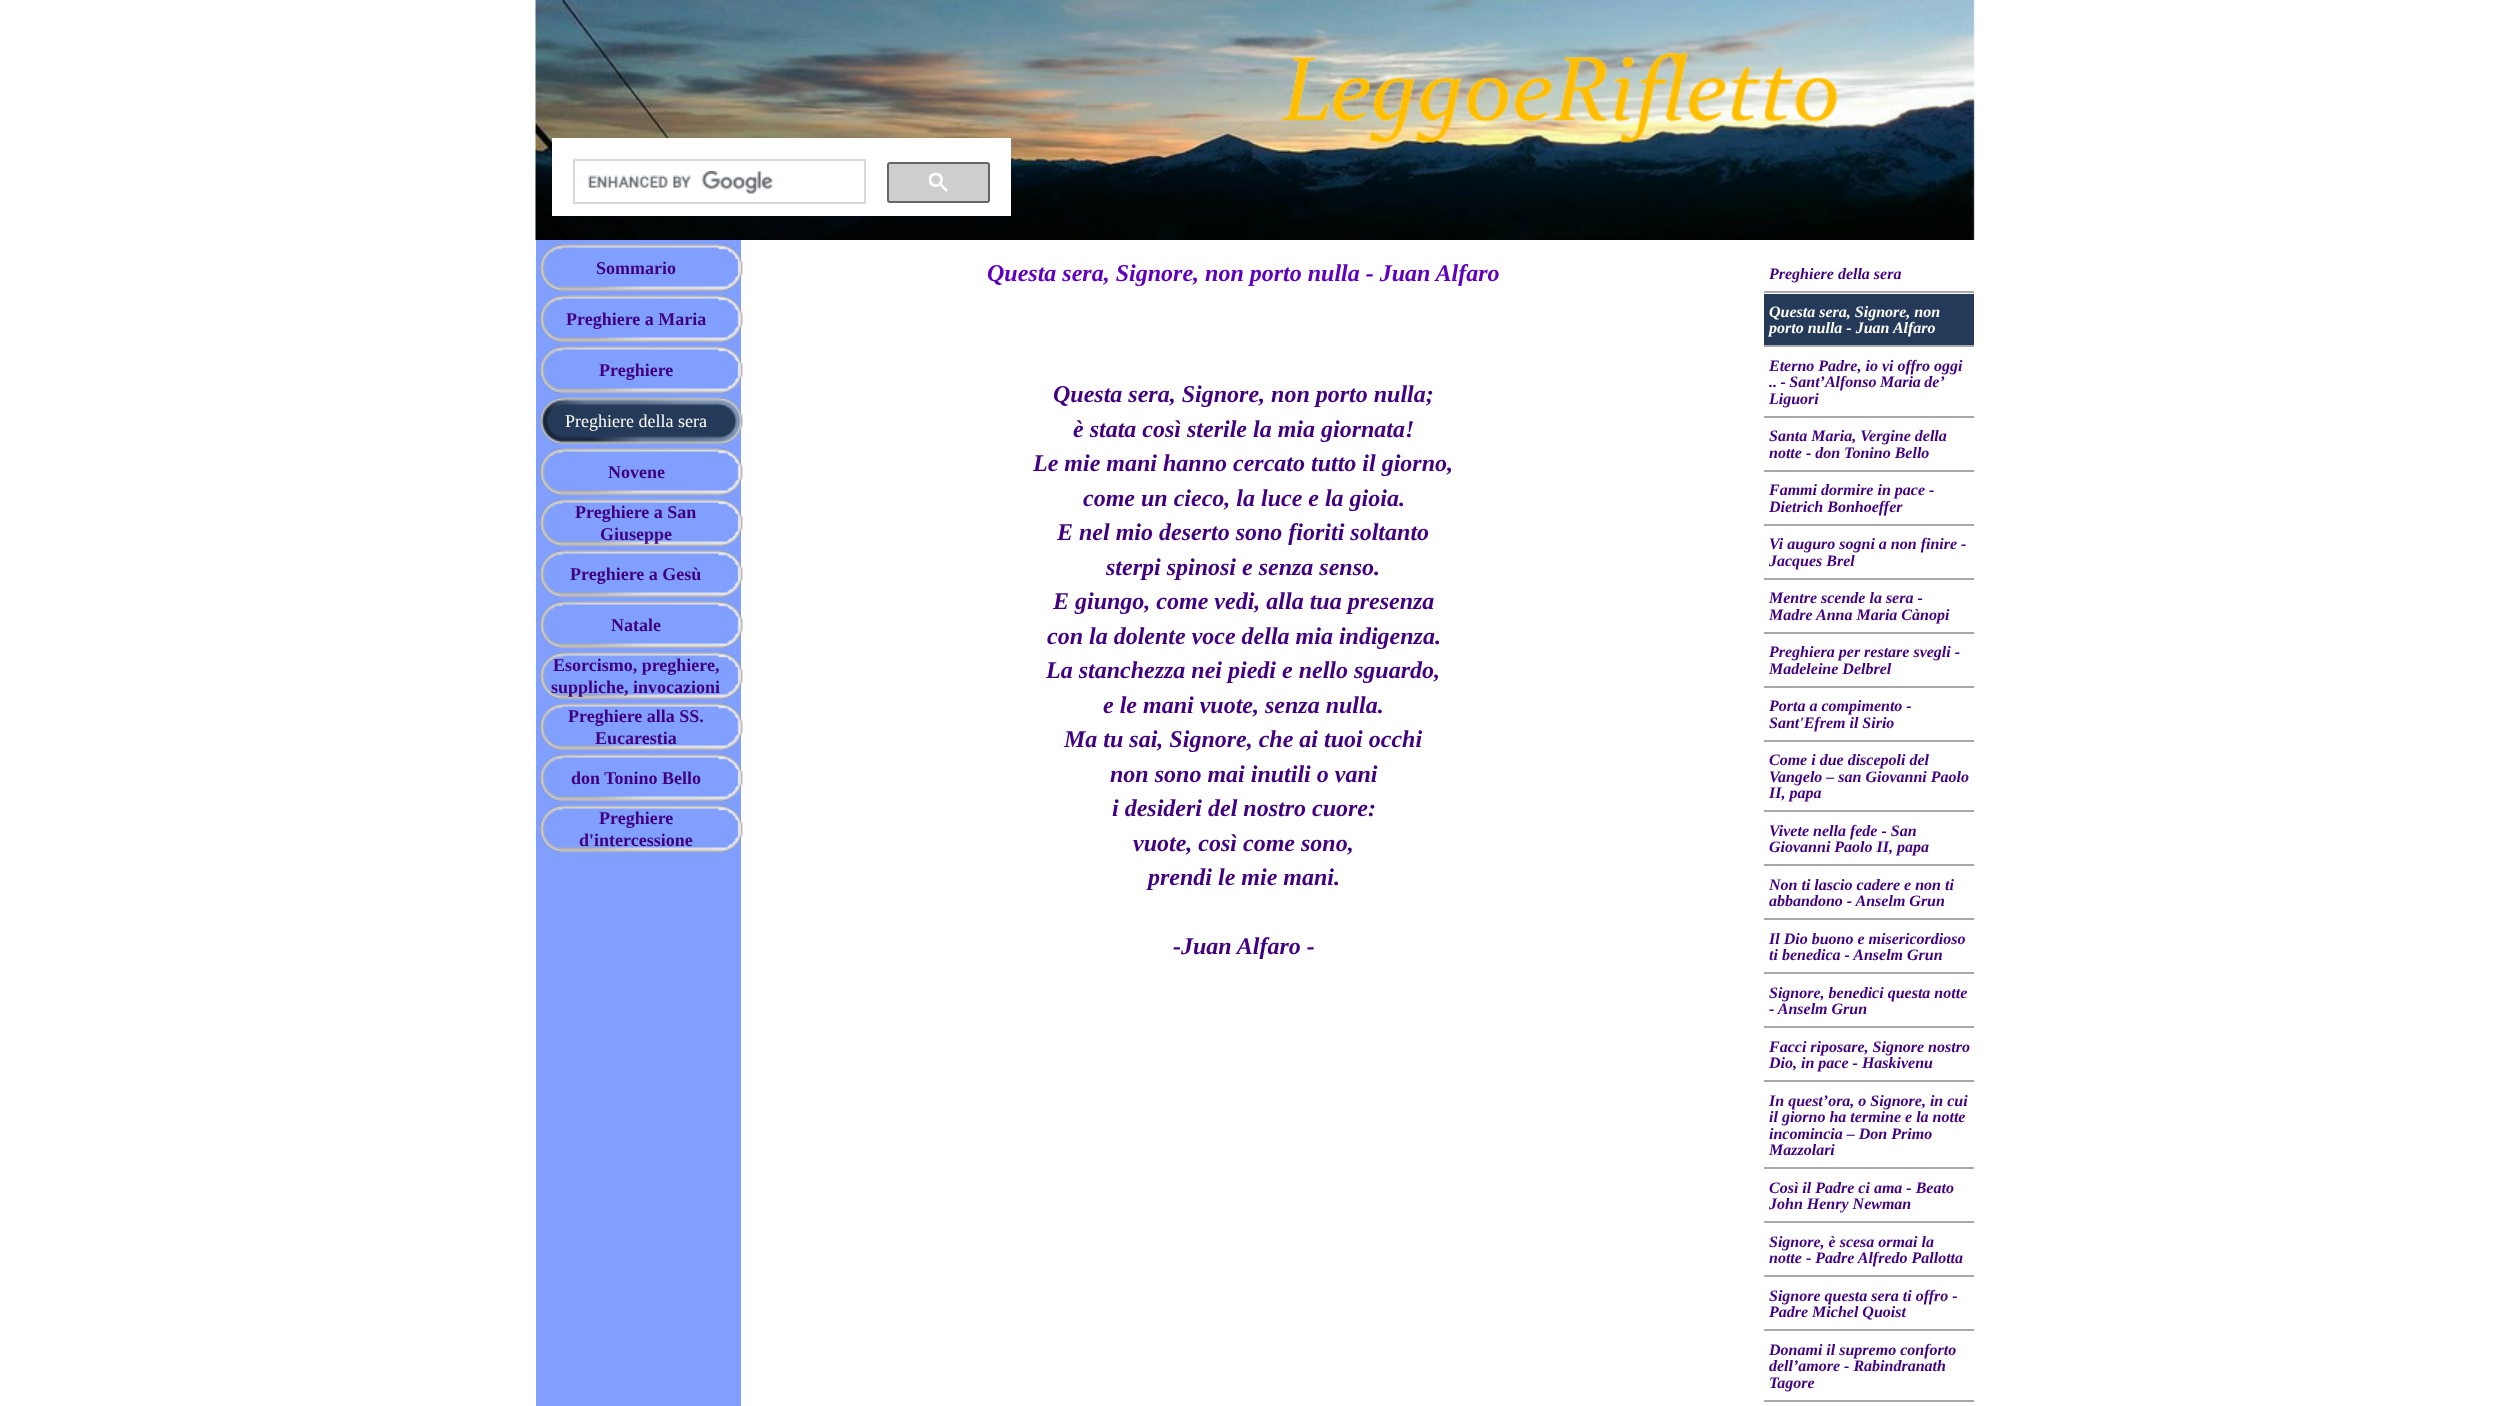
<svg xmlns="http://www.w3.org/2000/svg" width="2511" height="1406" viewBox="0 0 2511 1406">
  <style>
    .t1 { font: bold 18px Liberation Serif; fill: #400080; }
    .t2 { font: 18px Liberation Serif; fill: #fff; }
    .t3 { font: italic bold 24px Liberation Serif; fill: #6000bf; }
    .t4 { font: italic bold 16px Liberation Serif; fill: #400080; }
    .t5 { font: italic bold 16px Liberation Serif; fill: #fff; }
    .t6 { font: italic bold 24px Liberation Serif; fill: #400080; }
  </style>
  <rect width="100%" height="100%" fill="#fff"/>
  <image x="535" y="0" width="1440" height="240" href="images/1.png"/>
  <rect x="552" y="138" width="459" height="78" fill="#fff"/>
  <rect x="574" y="160" width="291" height="43" fill="none" stroke="#d9d9d9" stroke-width="2"/>
  <image x="588" y="171" width="185" height="23" href="images/2.png"/>
  <rect x="888" y="163" width="101" height="39" rx="2" fill="#cecece" stroke="#666" stroke-width="2"/>
  <image x="929" y="173" width="19" height="19" href="images/3.png"/>
  <rect x="536" y="240" width="205" height="1166" fill="#809fff"/>
  <image x="540" y="244" width="203" height="48" href="images/4.png"/>
  <text x="596" y="274" class="t1">Sommario</text>
  <image x="540" y="295" width="203" height="48" href="images/4.png"/>
  <text x="566" y="325" class="t1">Preghiere a Maria</text>
  <image x="540" y="346" width="203" height="48" href="images/4.png"/>
  <text x="599" y="376" class="t1">Preghiere</text>
  <image x="540" y="397" width="203" height="48" href="images/5.png"/>
  <text x="565" y="427" class="t2">Preghiere della sera</text>
  <image x="540" y="448" width="203" height="48" href="images/4.png"/>
  <text x="608" y="478" class="t1">Novene</text>
  <image x="540" y="499" width="203" height="48" href="images/4.png"/>
  <text x="575" y="518" class="t1">Preghiere a San</text>
  <text x="600" y="540" class="t1">Giuseppe</text>
  <image x="540" y="550" width="203" height="48" href="images/4.png"/>
  <text x="570" y="580" class="t1">Preghiere a Gesù</text>
  <image x="540" y="601" width="203" height="48" href="images/4.png"/>
  <text x="611" y="631" class="t1">Natale</text>
  <image x="540" y="652" width="203" height="48" href="images/4.png"/>
  <text x="553" y="671" class="t1">Esorcismo, preghiere,</text>
  <text x="551" y="693" class="t1">suppliche, invocazioni</text>
  <image x="540" y="703" width="203" height="48" href="images/4.png"/>
  <text x="568" y="722" class="t1">Preghiere alla SS.</text>
  <text x="595" y="744" class="t1">Eucarestia</text>
  <image x="540" y="754" width="203" height="48" href="images/4.png"/>
  <text x="571" y="784" class="t1">don Tonino Bello</text>
  <image x="540" y="805" width="203" height="48" href="images/4.png"/>
  <text x="599" y="824" class="t1">Preghiere</text>
  <text x="579" y="846" class="t1">d'intercessione</text>
  <text x="987" y="281" class="t3">Questa sera, Signore, non porto nulla - Juan Alfaro</text>
  <rect x="1764" y="291" width="210" height="2" fill="#a9a9a9"/>
  <text x="1769" y="279" class="t4">Preghiere della sera</text>
  <rect x="1764" y="294" width="210" height="51" fill="#253a58"/>
  <rect x="1764" y="345" width="210" height="2" fill="#a9a9a9"/>
  <text x="1769" y="317" class="t5">Questa sera, Signore, non</text>
  <text x="1769" y="333" class="t5">porto nulla - Juan Alfaro</text>
  <rect x="1764" y="416" width="210" height="2" fill="#a9a9a9"/>
  <text x="1769" y="371" class="t4">Eterno Padre, io vi offro oggi</text>
  <text x="1769" y="387" word-spacing="-0.5" class="t4">.. - Sant’Alfonso Maria de’</text>
  <text x="1769" y="404" class="t4">Liguori</text>
  <rect x="1764" y="470" width="210" height="2" fill="#a9a9a9"/>
  <text x="1769" y="441" class="t4">Santa Maria, Vergine della</text>
  <text x="1769" y="458" class="t4">notte - don Tonino Bello</text>
  <rect x="1764" y="524" width="210" height="2" fill="#a9a9a9"/>
  <text x="1769" y="495" class="t4">Fammi dormire in pace -</text>
  <text x="1769" y="512" class="t4">Dietrich Bonhoeffer</text>
  <rect x="1764" y="578" width="210" height="2" fill="#a9a9a9"/>
  <text x="1769" y="549" class="t4">Vi auguro sogni a non finire -</text>
  <text x="1769" y="566" class="t4">Jacques Brel</text>
  <rect x="1764" y="632" width="210" height="2" fill="#a9a9a9"/>
  <text x="1769" y="603" class="t4">Mentre scende la sera -</text>
  <text x="1769" y="620" class="t4">Madre Anna Maria Cànopi</text>
  <rect x="1764" y="686" width="210" height="2" fill="#a9a9a9"/>
  <text x="1769" y="657" class="t4">Preghiera per restare svegli -</text>
  <text x="1769" y="674" class="t4">Madeleine Delbrel</text>
  <rect x="1764" y="740" width="210" height="2" fill="#a9a9a9"/>
  <text x="1769" y="711" class="t4">Porta a compimento -</text>
  <text x="1769" y="728" class="t4">Sant'Efrem il Sirio</text>
  <rect x="1764" y="810" width="210" height="2" fill="#a9a9a9"/>
  <text x="1769" y="765" class="t4">Come i due discepoli del</text>
  <text x="1769" y="782" class="t4">Vangelo – san Giovanni Paolo</text>
  <text x="1769" y="798" class="t4">II, papa</text>
  <rect x="1764" y="864" width="210" height="2" fill="#a9a9a9"/>
  <text x="1769" y="836" class="t4">Vivete nella fede - San</text>
  <text x="1769" y="852" class="t4">Giovanni Paolo II, papa</text>
  <rect x="1764" y="918" width="210" height="2" fill="#a9a9a9"/>
  <text x="1769" y="890" class="t4">Non ti lascio cadere e non ti</text>
  <text x="1769" y="906" class="t4">abbandono - Anselm Grun</text>
  <rect x="1764" y="972" width="210" height="2" fill="#a9a9a9"/>
  <text x="1769" y="944" class="t4">Il Dio buono e misericordioso</text>
  <text x="1769" y="960" class="t4">ti benedica - Anselm Grun</text>
  <rect x="1764" y="1026" width="210" height="2" fill="#a9a9a9"/>
  <text x="1769" y="998" class="t4">Signore, benedici questa notte</text>
  <text x="1769" y="1014" class="t4">- Anselm Grun</text>
  <rect x="1764" y="1080" width="210" height="2" fill="#a9a9a9"/>
  <text x="1769" y="1052" class="t4">Facci riposare, Signore nostro</text>
  <text x="1769" y="1068" class="t4">Dio, in pace - Haskivenu</text>
  <rect x="1764" y="1167" width="210" height="2" fill="#a9a9a9"/>
  <text x="1769" y="1106" class="t4">In quest’ora, o Signore, in cui</text>
  <text x="1769" y="1122" class="t4">il giorno ha termine e la notte</text>
  <text x="1769" y="1139" class="t4">incomincia – Don Primo</text>
  <text x="1769" y="1155" class="t4">Mazzolari</text>
  <rect x="1764" y="1221" width="210" height="2" fill="#a9a9a9"/>
  <text x="1769" y="1193" class="t4">Così il Padre ci ama - Beato</text>
  <text x="1769" y="1209" class="t4">John Henry Newman</text>
  <rect x="1764" y="1275" width="210" height="2" fill="#a9a9a9"/>
  <text x="1769" y="1247" class="t4">Signore, è scesa ormai la</text>
  <text x="1769" y="1263" class="t4">notte - Padre Alfredo Pallotta</text>
  <rect x="1764" y="1329" width="210" height="2" fill="#a9a9a9"/>
  <text x="1769" y="1301" class="t4">Signore questa sera ti offro -</text>
  <text x="1769" y="1317" class="t4">Padre Michel Quoist</text>
  <rect x="1764" y="1400" width="210" height="2" fill="#a9a9a9"/>
  <text x="1769" y="1355" class="t4">Donami il supremo conforto</text>
  <text x="1769" y="1371" class="t4">dell’amore - Rabindranath</text>
  <text x="1769" y="1388" class="t4">Tagore</text>
  <text x="1053" y="402" class="t6">Questa sera, Signore, non porto nulla;</text>
  <text x="1073" y="437" class="t6">è stata così sterile la mia giornata!</text>
  <text x="1033" y="471" class="t6">Le mie mani hanno cercato tutto il giorno,</text>
  <text x="1083" y="506" class="t6">come un cieco, la luce e la gioia.</text>
  <text x="1057" y="540" class="t6">E nel mio deserto sono fioriti soltanto</text>
  <text x="1106" y="575" class="t6">sterpi spinosi e senza senso.</text>
  <text x="1053" y="609" class="t6">E giungo, come vedi, alla tua presenza</text>
  <text x="1047" y="644" class="t6">con la dolente voce della mia indigenza.</text>
  <text x="1046" y="678" class="t6">La stanchezza nei piedi e nello sguardo,</text>
  <text x="1103" y="713" class="t6">e le mani vuote, senza nulla.</text>
  <text x="1064" y="747" class="t6">Ma tu sai, Signore, che ai tuoi occhi</text>
  <text x="1110" y="782" class="t6">non sono mai inutili o vani</text>
  <text x="1112" y="816" class="t6">i desideri del nostro cuore:</text>
  <text x="1133" y="851" class="t6">vuote, così come sono,</text>
  <text x="1148" y="885" class="t6">prendi le mie mani.</text>
  <text x="1173" y="954" class="t6">-Juan Alfaro -</text>
</svg>
